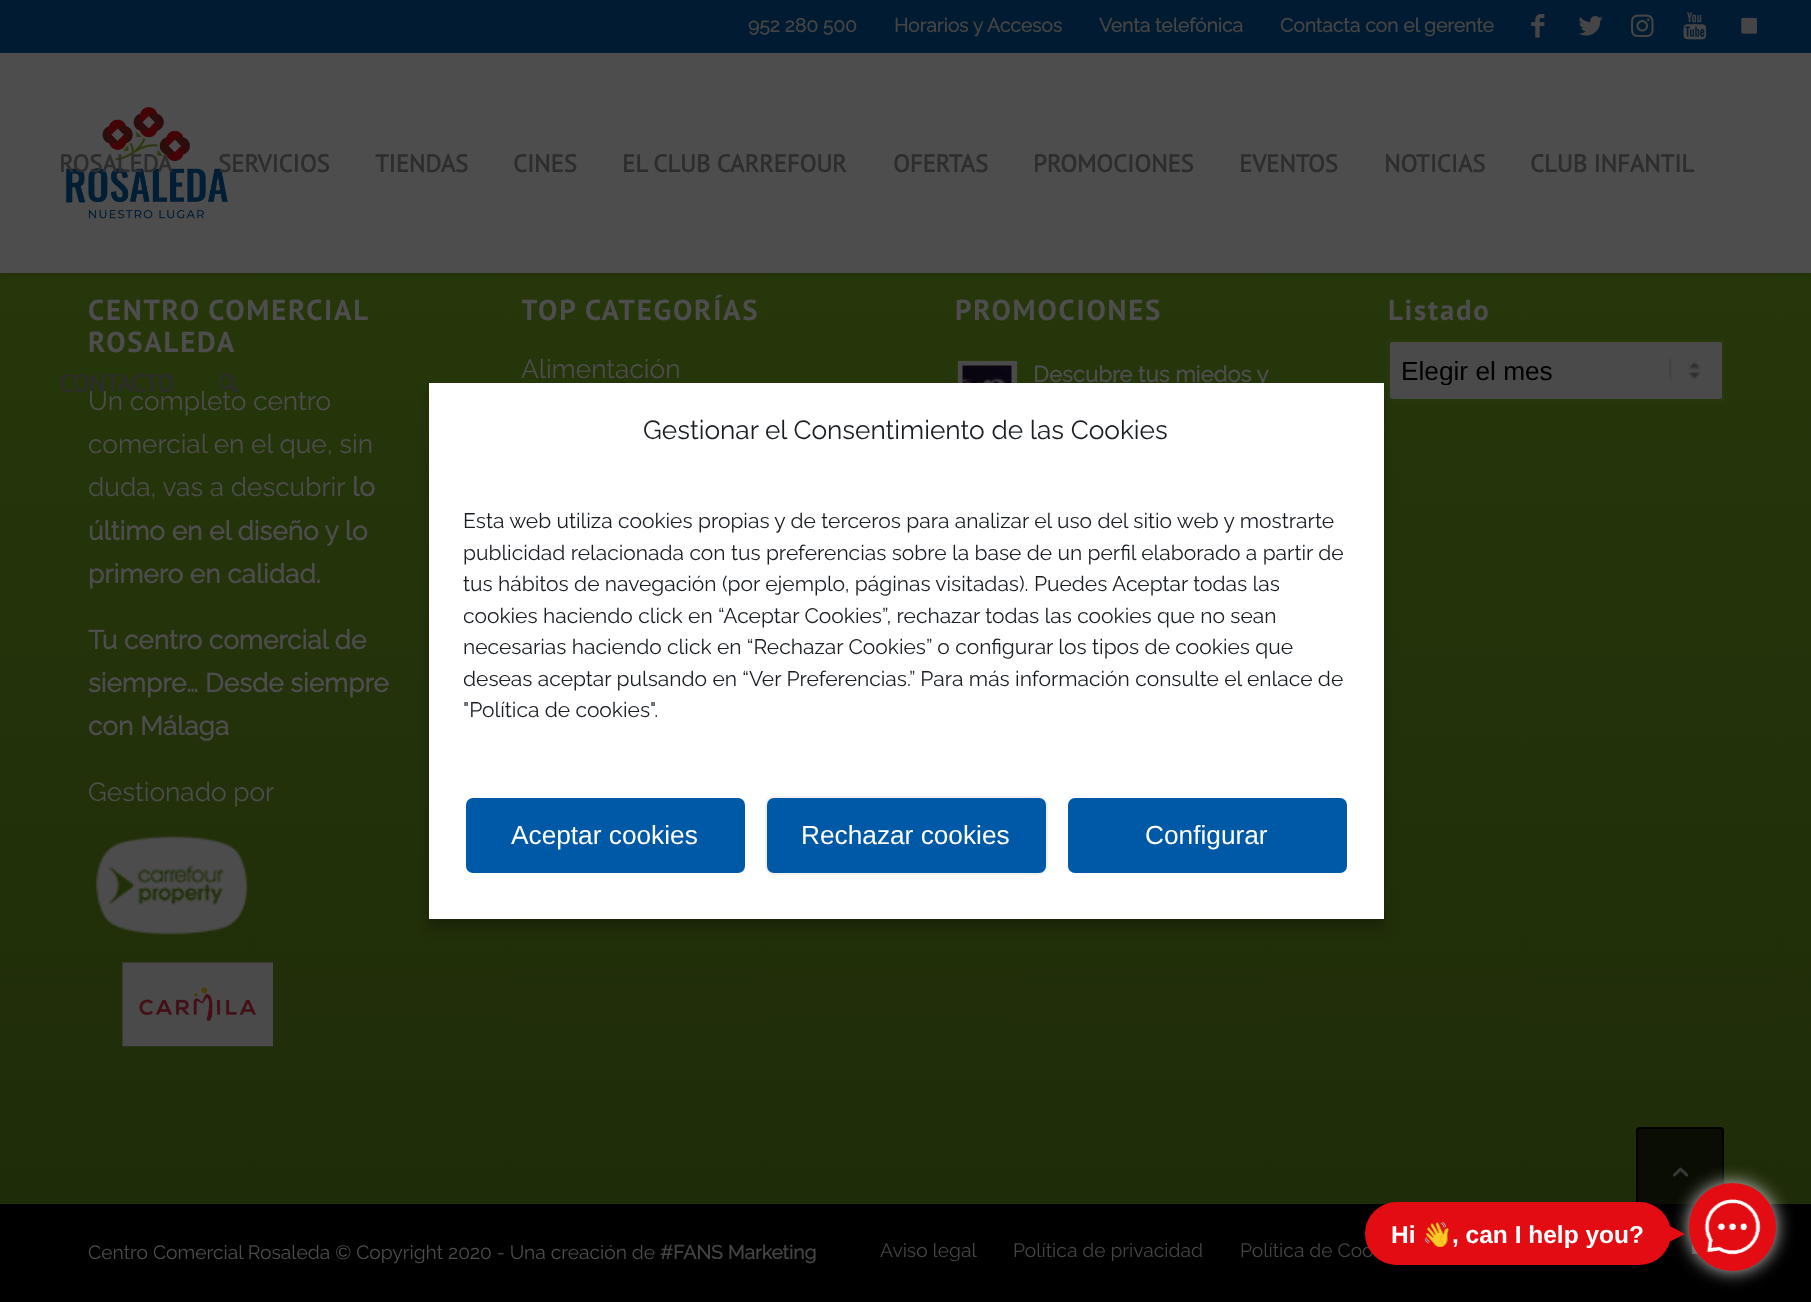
<svg xmlns="http://www.w3.org/2000/svg" width="1811" height="1302" viewBox="0 0 1811 1302">
  <style>
    .t1 { font: bold 19.25px Raleway; fill: #444; }
    .t2 { font: bold 24.5px 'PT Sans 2'; fill: #2d2d2d; }
    .t3 { font: 100 26.25px Raleway; fill: #4d4d4d; }
    .t4 { font: bold 28.9px PT Sans; letter-spacing: 1.75px; fill: #4d4d4d; }
    .t5 { font: bold 26.25px Raleway; fill: #4d4d4d; }
    .t6 { font: bold 22.25px Raleway; fill: #4d4d4d; }
    .t7 { font: 26.25px Liberation Sans; fill: #000; }
    .t8 { font: 100 19.25px Raleway; fill: #4d4d4d; }
    .t9 { font: 100 19.25px Raleway; fill: #444; }
    .t10 { font: 100 26.25px Raleway; fill: #191e23; }
    .t11 { font: 100 21px Raleway; fill: #191e23; }
    .t12 { font: 26.25px Liberation Sans; fill: #fff; }
    .t13 { font: bold 24.5px Liberation Sans; fill: #fff; }
    .t14 { font: bold 24.5px Noto Color Emoji; fill: #fff; }
  </style>
  <defs>
    <linearGradient id="g1" gradientUnits="userSpaceOnUse" x1="906" y1="191" x2="906" y2="1206"><stop offset="0" stop-color="#27380b"/><stop offset="1" stop-color="#1f2c09"/></linearGradient>
    <clipPath id="clip1"><rect x="522" y="270" width="334" height="577"/></clipPath>
    <clipPath id="clip2"><rect x="1400" y="355" width="312" height="30"/></clipPath>
    <clipPath id="clip3"><rect x="464" y="488" width="885" height="256"/></clipPath>
    <clipPath id="clip4"><rect x="1391" y="1220" width="254" height="28"/></clipPath>
  </defs>
  <rect width="100%" height="100%" fill="#fff"/>
  <rect x="0" y="273" width="1811" height="931" fill="url(#g1)"/>
  <rect x="-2" y="-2" width="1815" height="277" fill="#0000001a" filter="blur(2px)"/>
  <rect x="0" y="0" width="1811" height="53" fill="#001b32"/>
  <text x="748" y="32" class="t1">952 280 500</text>
  <text x="894" y="32" class="t1">Horarios y Accesos</text>
  <text x="1099" y="32" class="t1">Venta telefónica</text>
  <text x="1280" y="32" class="t1">Contacta con el gerente</text>
  <image x="1531" y="14" width="14" height="24" href="images/1.png"/>
  <image x="1578" y="16" width="25" height="20" href="images/2.png"/>
  <image x="1631" y="14" width="23" height="24" href="images/3.png"/>
  <image x="1683" y="12" width="24" height="28" href="images/4.png"/>
  <image x="1741" y="17" width="16" height="17" href="images/5.png"/>
  <rect x="0" y="53" width="1811" height="220" fill="#4d4d4d"/>
  <image x="66" y="107" width="162" height="112" href="images/6.png"/>
  <text x="59" y="172" class="t2">ROSALEDA</text>
  <text x="218" y="172" class="t2">SERVICIOS</text>
  <text x="375" y="172" class="t2">TIENDAS</text>
  <text x="513" y="172" class="t2">CINES</text>
  <text x="622" y="172" class="t2">EL CLUB CARREFOUR</text>
  <text x="893" y="172" class="t2">OFERTAS</text>
  <text x="1033" y="172" class="t2">PROMOCIONES</text>
  <text x="1239" y="172" class="t2">EVENTOS</text>
  <text x="1384" y="172" class="t2">NOTICIAS</text>
  <text x="1530" y="172" class="t2">CLUB INFANTIL</text>
  <text x="59" y="392" class="t2">CONTACTO</text>
  <text x="88" y="410" class="t3">Un completo centro</text>
  <image x="218" y="373" width="20" height="21" href="images/7.png"/>
  <text x="88" y="320" word-spacing="-1" class="t4">CENTRO COMERCIAL</text>
  <text x="88" y="352" class="t4">ROSALEDA</text>
  <text x="88" y="453" class="t3">comercial en el que, sin</text>
  <text x="88" y="496" class="t3">duda, vas a descubrir</text>
  <text x="352" y="496" class="t5">lo</text>
  <text x="88" y="540" class="t5">último en el diseño y lo</text>
  <text x="88" y="583" class="t5">primero en calidad.</text>
  <text x="88" y="649" class="t5">Tu centro comercial de</text>
  <text x="88" y="692" class="t5">siempre… Desde siempre</text>
  <text x="88" y="735" class="t5">con Málaga</text>
  <text x="88" y="801" class="t3">Gestionado por</text>
  <image x="95" y="836" width="153" height="99" href="images/8.png"/>
  <image x="122" y="962" width="151" height="85" href="images/9.png"/>
  <g clip-path="url(#clip1)">
    <text x="521" y="320" class="t4">TOP CATEGORÍAS</text>
  </g>
  <text x="521" y="378" class="t3">Alimentación</text>
  <text x="955" y="320" class="t4">PROMOCIONES</text>
  <rect x="958" y="361" width="59" height="22" fill="#4a4a4a"/>
  <rect x="957" y="360" width="61" height="61" fill="none" stroke="#27380b" stroke-width="2"/>
  <image x="962" y="365" width="50" height="18" href="images/10.png"/>
  <text x="1033" y="382" class="t6">Descubre tus miedos y</text>
  <text x="1388" y="320" class="t4">Listado</text>
  <rect x="1388" y="340" width="336" height="61" rx="4" fill="#4a4a4a"/>
  <image x="1669" y="358" width="32" height="24" href="images/11.png"/>
  <rect x="1389" y="341" width="334" height="59" rx="3" fill="none" stroke="#27380b" stroke-width="2"/>
  <g clip-path="url(#clip2)">
    <text x="1401" y="380" class="t7">Elegir el mes</text>
  </g>
  <rect x="0" y="1204" width="1811" height="98" fill="#000"/>
  <text x="88" y="1259" class="t8">Centro Comercial Rosaleda © Copyright 2020 - Una creación de</text>
  <text x="660" y="1259" class="t1">#FANS Marketing</text>
  <text x="880" y="1257" class="t9">Aviso legal</text>
  <text x="1013" y="1257" class="t9">Política de privacidad</text>
  <text x="1240" y="1257" class="t9">Política de Coo</text>
  <rect x="1692" y="1243" width="6" height="11" fill="#3a3a3a"/>
  <rect x="429" y="394" width="955" height="535" fill="#0000003b" filter="blur(5px)"/>
  <rect x="429" y="383" width="955" height="536" fill="#fff"/>
  <text x="643" y="439" class="t10">Gestionar el Consentimiento de las Cookies</text>
  <text x="463" y="528" class="t11">Esta web utiliza cookies propias y de terceros para analizar el uso del sitio web y mostrarte</text>
  <text x="463" y="560" class="t11">publicidad relacionada con tus preferencias sobre la base de un perfil elaborado a partir de</text>
  <text x="463" y="591" class="t11">tus hábitos de navegación (por ejemplo, páginas visitadas). Puedes Aceptar todas las</text>
  <g clip-path="url(#clip3)">
    <text x="463" y="623" class="t11">cookies haciendo click en “Aceptar Cookies”, rechazar todas las cookies que no sean</text>
  </g>
  <text x="463" y="654" class="t11">necesarias haciendo click en “Rechazar Cookies” o configurar los tipos de cookies que</text>
  <g clip-path="url(#clip3)">
    <text x="463" y="686" class="t11">deseas aceptar pulsando en “Ver Preferencias.” Para más información consulte el enlace de</text>
  </g>
  <text x="463" y="717" class="t11">"Política de cookies".</text>
  <rect x="465" y="797" width="281" height="77" rx="8" fill="#0059a7" stroke="#fff" stroke-width="2"/>
  <text x="511" y="844" class="t12">Aceptar cookies</text>
  <rect x="766" y="797" width="281" height="77" rx="8" fill="#0059a7" stroke="#f1f1f1" stroke-width="2"/>
  <text x="801" y="844" class="t12">Rechazar cookies</text>
  <rect x="1067" y="797" width="281" height="77" rx="8" fill="#0059a7" stroke="#fff" stroke-width="2"/>
  <text x="1145" y="844" class="t12">Configurar</text>
  <rect x="1636" y="1127" width="88" height="88" rx="4" fill="#000000b3"/>
  <rect x="1637" y="1128" width="86" height="86" rx="3" fill="none" stroke="#000000b3" stroke-width="2"/>
  <image x="1673" y="1167" width="16" height="10" href="images/12.png"/>
  <rect x="1689" y="1183" width="87" height="88" rx="43.5" fill="#ccc" filter="blur(9px)"/>
  <rect x="1365" y="1202" width="306" height="63" rx="31.5" fill="#e30c13"/>
  <text x="1391" y="1243" class="t13">Hi</text>
  <text x="1422" y="1243" class="t14">👋</text>
  <g clip-path="url(#clip4)">
    <text x="1452" y="1243" class="t13">, can I help you?</text>
  </g>
  <path d="M1668 1242.5V1225L1685 1234Z" fill="#e30c13"/>
  <rect x="1689" y="1183" width="87" height="88" rx="43.5" fill="#e30c13"/>
  <image x="1704" y="1199" width="57" height="56" href="images/13.png"/>
</svg>
